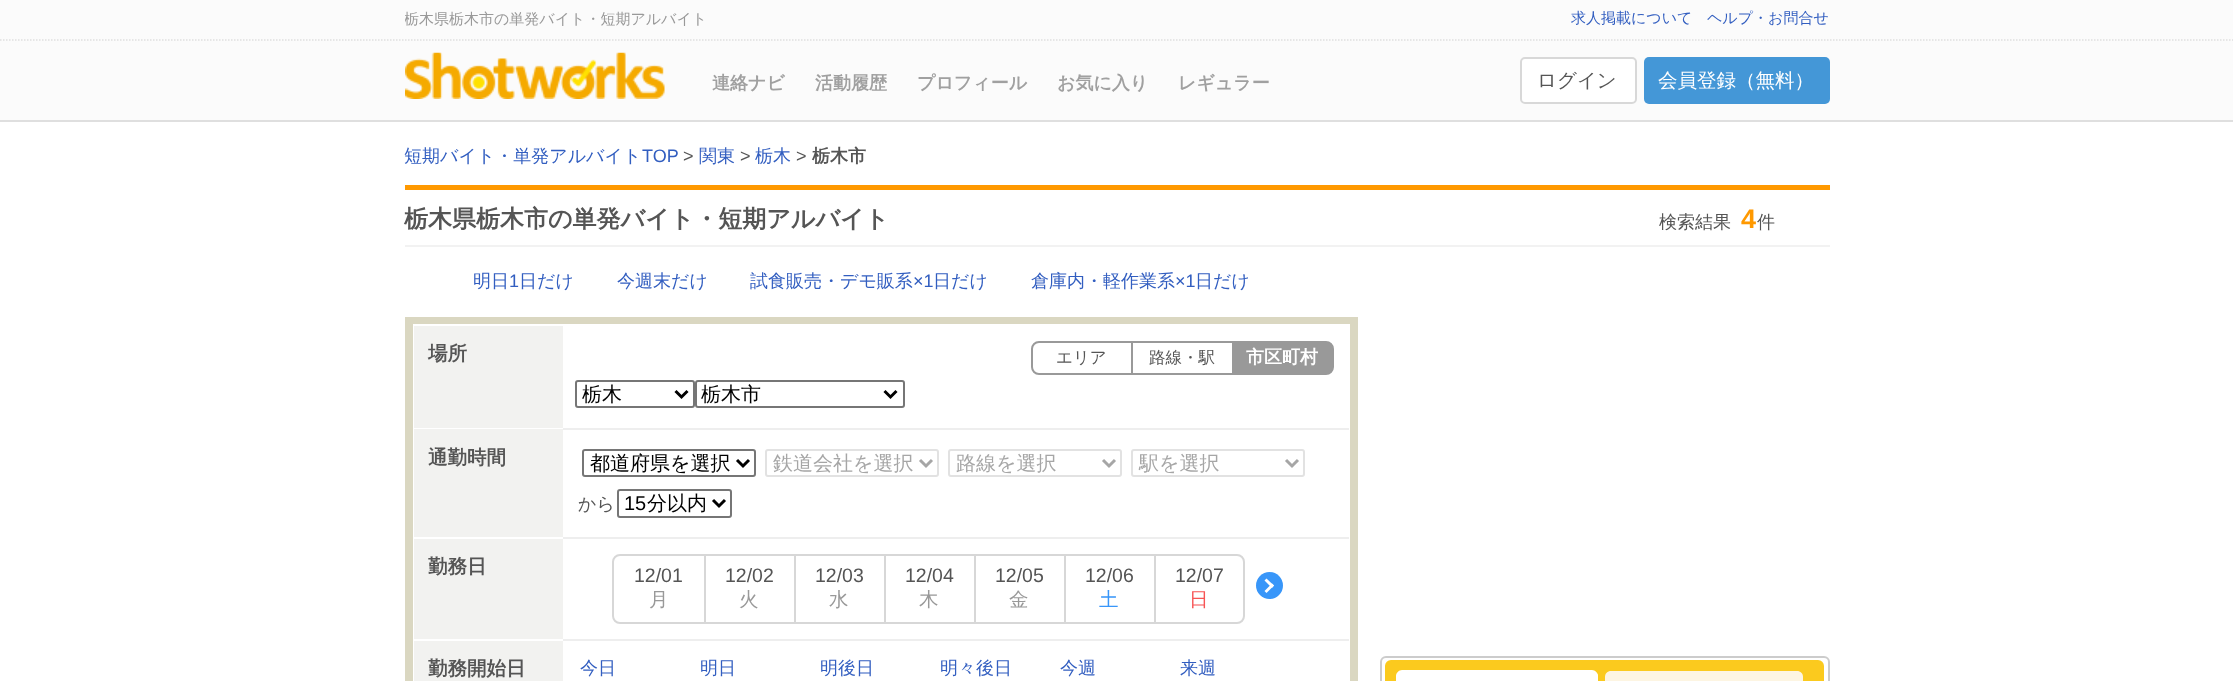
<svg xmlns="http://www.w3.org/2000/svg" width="2233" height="681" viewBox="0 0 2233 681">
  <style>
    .t1 { font: 500 15px WenQuanYi Zen Hei; fill: #999; }
    .t2 { font: 500 15px WenQuanYi Zen Hei; fill: #325ec0; }
    .t3 { font: bold 18px WenQuanYi Zen Hei; fill: #a0a0a0; }
    .t4 { font: 500 19.5px WenQuanYi Zen Hei; fill: #555; }
    .t5 { font: 500 19.5px WenQuanYi Zen Hei; fill: #fff; }
    .t6 { font: 500 18px WenQuanYi Zen Hei; fill: #325ec0; }
    .t7 { font: 18px Liberation Sans; fill: #325ec0; }
    .t8 { font: 18px Liberation Sans; fill: #555; }
    .t9 { font: bold 18px WenQuanYi Zen Hei; fill: #555; }
    .t10 { font: bold 24px WenQuanYi Zen Hei; fill: #555; }
    .t11 { font: 500 18px WenQuanYi Zen Hei; fill: #555; }
    .t12 { font: bold 27px Liberation Sans; fill: #f90; }
    .t13 { font: bold 19.5px WenQuanYi Zen Hei; fill: #555; }
    .t14 { font: 500 16.5px WenQuanYi Zen Hei; fill: #555; }
    .t15 { font: bold 18px WenQuanYi Zen Hei; fill: #fff; }
    .t16 { font: 500 20px WenQuanYi Zen Hei; fill: #000; }
    .t17 { font: 500 20px WenQuanYi Zen Hei; fill: #a6a6a6; }
    .t18 { font: 20px Liberation Sans; fill: #000; }
    .t19 { font: 19.5px Liberation Sans; fill: #555; }
    .t20 { font: 500 19.5px WenQuanYi Zen Hei; fill: #999; }
    .t21 { font: 500 19.5px WenQuanYi Zen Hei; fill: #3896f9; }
    .t22 { font: 500 19.5px WenQuanYi Zen Hei; fill: #f75455; }
  </style>
  <defs>
    <clipPath id="clip1"><rect x="405" y="0" width="975" height="39"/></clipPath>
  </defs>
  <rect width="100%" height="100%" fill="#fff"/>
  <rect x="0" y="0" width="2233" height="120" fill="#fbfbfb"/>
  <rect x="0" y="120" width="2233" height="2" fill="#dfdfdf"/>
  <path d="M0 40H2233.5" fill="none" stroke="#dfdfdf" stroke-width="1.5" stroke-dasharray="1.5 1.5"/>
  <g clip-path="url(#clip1)">
    <text x="404" y="24" class="t1">栃木県栃木市の単発バイト・短期アルバイト</text>
  </g>
  <text x="1571" y="23" class="t2">求人掲載について</text>
  <text x="1707" y="23" class="t2">ヘルプ・お問合せ</text>
  <image x="405" y="52" width="260" height="47" href="images/1.png"/>
  <text x="712" y="89" class="t3">連絡ナビ</text>
  <text x="815" y="89" class="t3">活動履歴</text>
  <text x="917" y="89" class="t3">プロフィール</text>
  <text x="1057" y="89" class="t3">お気に入り</text>
  <text x="1178" y="89" class="t3">レギュラー</text>
  <rect x="1521" y="58" width="115" height="45" rx="4" fill="#fff" stroke="#d8d8d8" stroke-width="2"/>
  <text x="1537" y="87" class="t4">ログイン</text>
  <rect x="1644" y="57" width="186" height="47" rx="5" fill="#4497d7"/>
  <text x="1658" y="87" class="t5">会員登録（無料）</text>
  <text x="404" y="162" class="t6">短期バイト・単発アルバイト</text>
  <text x="642" y="162" class="t7">TOP</text>
  <text x="683" y="162" class="t8">&gt;</text>
  <text x="699" y="162" class="t6">関東</text>
  <text x="740" y="162" class="t8">&gt;</text>
  <text x="755" y="162" class="t6">栃木</text>
  <text x="796" y="162" class="t8">&gt;</text>
  <text x="812" y="162" class="t9">栃木市</text>
  <rect x="405" y="185" width="1425" height="5" fill="#f90"/>
  <rect x="405" y="245" width="1425" height="2" fill="#f2f2f2"/>
  <text x="404" y="227" class="t10">栃木県栃木市の単発バイト・短期アルバイト</text>
  <text x="1659" y="228" class="t11">検索結果</text>
  <text x="1741" y="228" class="t12">4</text>
  <text x="1757" y="228" class="t11">件</text>
  <text x="473" y="287" class="t6">明日</text>
  <text x="509" y="287" class="t7">1</text>
  <text x="519" y="287" class="t6">日だけ</text>
  <text x="617" y="287" class="t6">今週末だけ</text>
  <text x="750" y="287" class="t6">試食販売・デモ販系</text>
  <text x="913" y="287" class="t7">×1</text>
  <text x="933" y="287" class="t6">日だけ</text>
  <text x="1031" y="287" class="t6">倉庫内・軽作業系</text>
  <text x="1175" y="287" class="t7">×1</text>
  <text x="1195" y="287" class="t6">日だけ</text>
  <rect x="409" y="321" width="945" height="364" fill="none" stroke="#dad7c1" stroke-width="8"/>
  <rect x="414" y="325" width="935" height="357" fill="none" stroke="#fff" stroke-width="2"/>
  <rect x="414" y="326" width="149" height="102" fill="#f2f2f0"/>
  <text x="428" y="360" class="t13">場所</text>
  <rect x="563" y="428" width="786" height="2" fill="#eee"/>
  <rect x="1032" y="342" width="301" height="32" rx="7" fill="none" stroke="#999" stroke-width="2"/>
  <text x="1056" y="363" class="t14">エリア</text>
  <rect x="1131" y="342" width="2" height="32" fill="#999"/>
  <text x="1149" y="363" class="t14">路線・駅</text>
  <path d="M1232 342H1327C1330 342 1332 344 1332 347V369C1332 372 1330 374 1327 374H1232Z" fill="#999"/>
  <text x="1246" y="363" class="t15">市区町村</text>
  <rect x="576" y="381" width="118" height="26" rx="2" fill="none" stroke="#767676" stroke-width="2"/>
  <path d="M675.5 391L681.5 397L687.5 391" fill="none" stroke="#000" stroke-width="3"/>
  <text x="582" y="401" class="t16">栃木</text>
  <rect x="696" y="381" width="208" height="26" rx="2" fill="none" stroke="#767676" stroke-width="2"/>
  <path d="M884.5 391L890.5 397L896.5 391" fill="none" stroke="#000" stroke-width="3"/>
  <text x="701" y="401" class="t16">栃木市</text>
  <rect x="414" y="429" width="149" height="108" fill="#f2f2f0"/>
  <text x="428" y="464" class="t13">通勤時間</text>
  <rect x="563" y="537" width="786" height="2" fill="#eee"/>
  <rect x="583" y="450" width="172" height="26" rx="2" fill="none" stroke="#767676" stroke-width="2"/>
  <path d="M737 460L743 466L749 460" fill="none" stroke="#000" stroke-width="3"/>
  <text x="590" y="470" class="t16">都道府県を選択</text>
  <rect x="766" y="450" width="172" height="26" rx="2" fill="none" stroke="#e2e2e2" stroke-width="2"/>
  <path d="M920 460L926 466L932 460" fill="none" stroke="#a6a6a6" stroke-width="3"/>
  <text x="773" y="470" class="t17">鉄道会社を選択</text>
  <rect x="949" y="450" width="172" height="26" rx="2" fill="none" stroke="#e2e2e2" stroke-width="2"/>
  <path d="M1103 460L1109 466L1115 460" fill="none" stroke="#a6a6a6" stroke-width="3"/>
  <text x="956" y="470" class="t17">路線を選択</text>
  <rect x="1132" y="450" width="172" height="26" rx="2" fill="none" stroke="#e2e2e2" stroke-width="2"/>
  <path d="M1286 460L1292 466L1298 460" fill="none" stroke="#a6a6a6" stroke-width="3"/>
  <text x="1139" y="470" class="t17">駅を選択</text>
  <text x="578" y="510" class="t11">から</text>
  <rect x="618" y="490" width="113" height="27" rx="2" fill="none" stroke="#767676" stroke-width="2"/>
  <path d="M713 500L719 506L725 500" fill="none" stroke="#000" stroke-width="3"/>
  <text x="624" y="510" class="t18">15</text>
  <text x="647" y="510" class="t16">分以内</text>
  <rect x="414" y="539" width="149" height="100" fill="#f2f2f0"/>
  <text x="428" y="573" class="t13">勤務日</text>
  <rect x="563" y="639" width="786" height="2" fill="#eee"/>
  <rect x="613" y="555" width="631" height="68" rx="7" fill="none" stroke="#d7d7d7" stroke-width="2"/>
  <text x="634" y="582" class="t19">12/01</text>
  <text x="649" y="606" class="t20">月</text>
  <rect x="704" y="555" width="2" height="68" fill="#d7d7d7"/>
  <text x="725" y="582" class="t19">12/02</text>
  <text x="739" y="606" class="t20">火</text>
  <rect x="794" y="555" width="2" height="68" fill="#d7d7d7"/>
  <text x="815" y="582" class="t19">12/03</text>
  <text x="829" y="606" class="t20">水</text>
  <rect x="884" y="555" width="2" height="68" fill="#d7d7d7"/>
  <text x="905" y="582" class="t19">12/04</text>
  <text x="919" y="606" class="t20">木</text>
  <rect x="974" y="555" width="2" height="68" fill="#d7d7d7"/>
  <text x="995" y="582" class="t19">12/05</text>
  <text x="1009" y="606" class="t20">金</text>
  <rect x="1064" y="555" width="2" height="68" fill="#d7d7d7"/>
  <text x="1085" y="582" class="t19">12/06</text>
  <text x="1099" y="606" class="t21">土</text>
  <rect x="1154" y="555" width="2" height="68" fill="#d7d7d7"/>
  <text x="1175" y="582" class="t19">12/07</text>
  <text x="1189" y="606" class="t22">日</text>
  <circle cx="1269.5" cy="585.5" r="13.5" fill="#3896f9"/>
  <path d="M1266.5 578.5L1274 585.5L1272 588L1264.5 580.5Z" fill="#fff"/>
  <path d="M1272 583.5L1274 585.5L1266.5 593L1264.5 591Z" fill="#fff"/>
  <rect x="414" y="641" width="149" height="40" fill="#f2f2f0"/>
  <text x="428" y="675" class="t13">勤務開始日</text>
  <text x="580" y="674" class="t6">今日</text>
  <text x="700" y="674" class="t6">明日</text>
  <text x="820" y="674" class="t6">明後日</text>
  <text x="940" y="674" class="t6">明々後日</text>
  <text x="1060" y="674" class="t6">今週</text>
  <text x="1180" y="674" class="t6">来週</text>
  <rect x="1381" y="657" width="448" height="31" rx="5" fill="none" stroke="#ccc" stroke-width="2"/>
  <rect x="1386" y="661" width="437" height="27" rx="5" fill="#fbca1e" stroke="#fbca1e" stroke-width="2"/>
  <path d="M1403 671H1592C1595.5 671 1598 673.5 1598 677V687H1397V677C1397 673.5 1399.5 671 1403 671Z" fill="#fff"/>
  <path d="M1402 670H1592C1595 670 1598 673 1598 676V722H1396V676C1396 673 1399 670 1402 670ZM1402 672H1592C1594 672 1596 674 1596 676V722H1398V676C1398 674 1400 672 1402 672Z" fill="#fff" fill-rule="evenodd"/>
  <path d="M1611 671H1797C1800.5 671 1803 673.5 1803 677V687H1605V677C1605 673.5 1607.5 671 1611 671Z" fill="#fdf5e2"/>
</svg>
